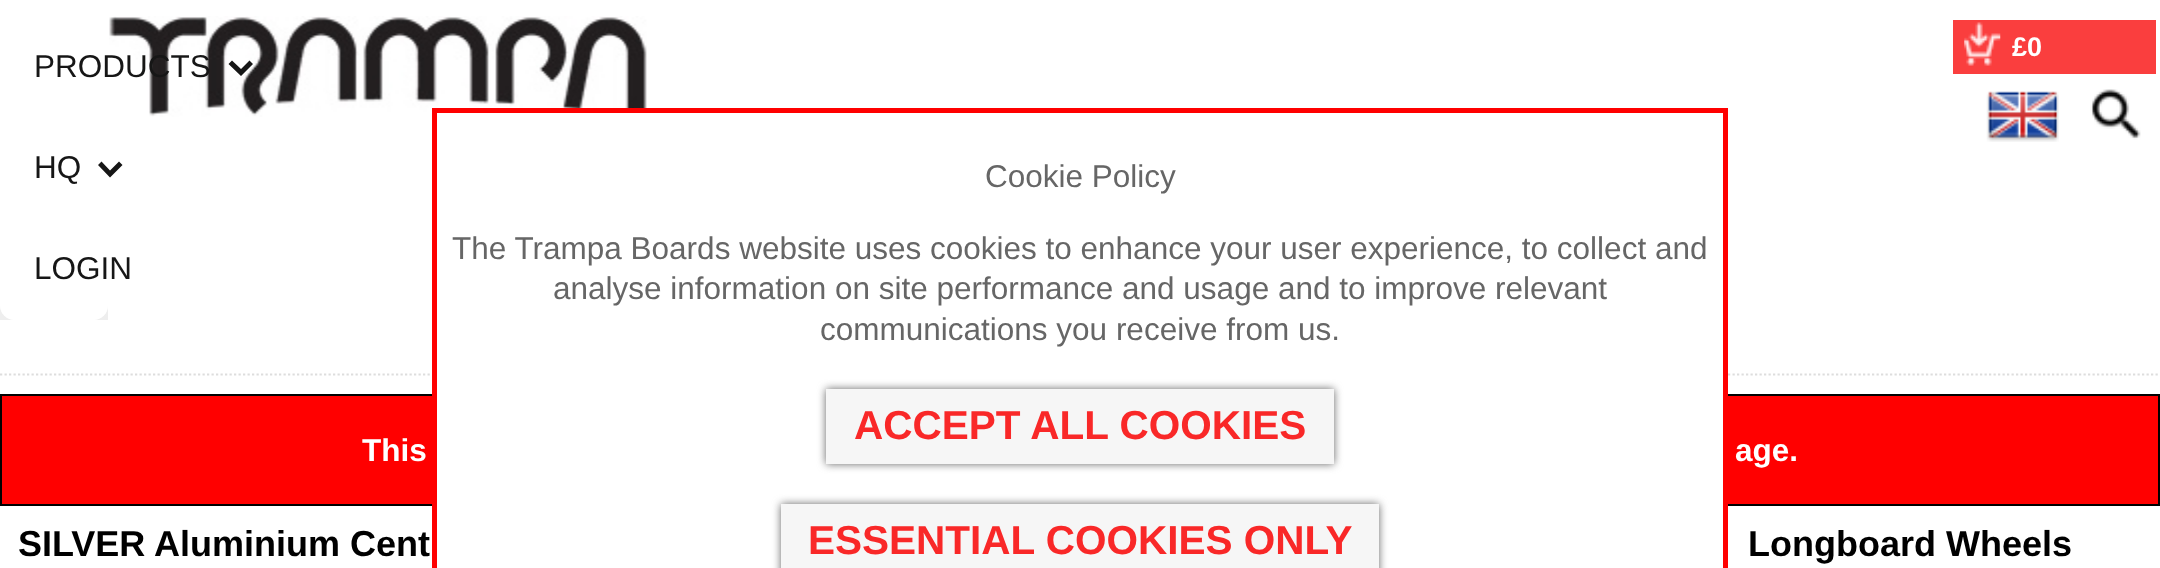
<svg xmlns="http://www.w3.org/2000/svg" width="2160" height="568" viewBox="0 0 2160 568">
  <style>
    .t1 { font: bold 27px Liberation Sans; fill: #fff; }
    .t2 { font: 31.5px Liberation Sans; fill: #161616; }
    .t3 { font: bold 31.5px Liberation Sans; fill: #fff; }
    .t4 { font: bold 36px Liberation Sans; fill: #000; }
    .t5 { font: 31.5px Liberation Sans; fill: #666; }
    .t6 { font: bold 40.5px Liberation Sans; fill: #f92828; }
  </style>
  <rect width="100%" height="100%" fill="#fff"/>
  <image x="109" y="16" width="538" height="101" href="images/1.png"/>
  <rect x="1953" y="20" width="203" height="54" fill="#fa3e3e"/>
  <image x="1964" y="22" width="37" height="44" href="images/2.png"/>
  <text x="2012" y="56" class="t1">£0</text>
  <image x="1986" y="91" width="73" height="51" href="images/3.png"/>
  <image x="2090" y="89" width="51" height="51" href="images/4.png"/>
  <rect x="0" y="306" width="108" height="14" fill="#eee"/>
  <path d="M0 16H108V306C108 313.5 101.5 320 94 320H14C6.5 320 0 313.5 0 306Z" fill="#fff"/>
  <text x="34" y="77" class="t2">PRODUCTS</text>
  <path d="M253 64L249.5 60.5L241 69L232 60.5L228.5 64L241 76Z" fill="#161616"/>
  <text x="34" y="178" class="t2">HQ</text>
  <path d="M122.5 165L119 161.5L110 170.5L101.5 161.5L98 165L110 177.5Z" fill="#161616"/>
  <text x="34" y="279" class="t2">LOGIN</text>
  <path d="M0 374.5H2160" fill="none" stroke="#ddd" stroke-width="2.2" stroke-dasharray="2.25 2.25"/>
  <rect x="1" y="395" width="2158" height="110" fill="#f00" stroke="#000" stroke-width="2"/>
  <text x="362" y="461" class="t3">This</text>
  <text x="1735" y="461" class="t3">age.</text>
  <text x="18" y="556" class="t4">SILVER Aluminium Cent</text>
  <text x="1748" y="556" class="t4">Longboard Wheels</text>
  <rect x="437" y="113" width="1286" height="393" fill="#fff"/>
  <rect x="434.5" y="110.5" width="1291" height="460" fill="none" stroke="#f00" stroke-width="5"/>
  <text x="985" y="187" class="t5">Cookie Policy</text>
  <text x="452" y="259" class="t5">The Trampa Boards website uses cookies to enhance your user experience, to collect and</text>
  <text x="553" y="299" class="t5">analyse information on site performance and usage and to improve relevant</text>
  <text x="820" y="340" class="t5">communications you receive from us.</text>
  <rect x="826" y="389" width="508" height="75" fill="#666" filter="blur(4.5px)"/>
  <rect x="826" y="389" width="508" height="75" fill="#f6f6f6"/>
  <text x="854" y="439" class="t6">ACCEPT ALL COOKIES</text>
  <rect x="781" y="504" width="598" height="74" fill="#666" filter="blur(4.5px)"/>
  <rect x="781" y="504" width="598" height="64" fill="#f6f6f6"/>
  <text x="808" y="554" class="t6">ESSENTIAL COOKIES ONLY</text>
</svg>
